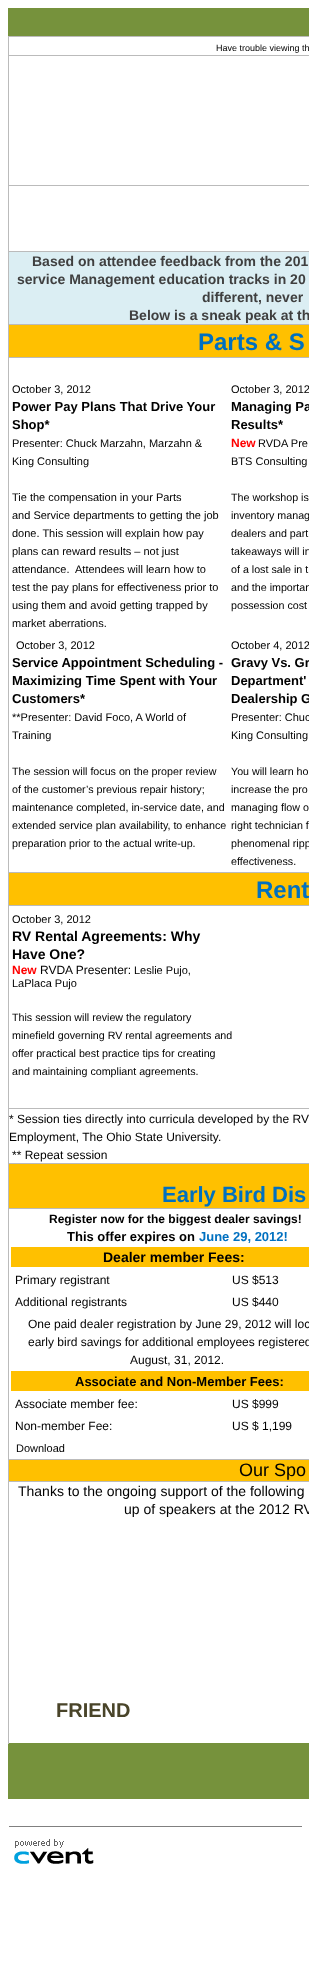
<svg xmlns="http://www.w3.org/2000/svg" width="309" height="1962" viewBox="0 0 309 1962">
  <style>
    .t1 { font: 9px Liberation Sans; fill: #000; }
    .t2 { font: bold 14px Liberation Sans; fill: #3f3f3f; }
    .t3 { font: bold 24px Liberation Sans; fill: #0070c0; }
    .t4 { font: 11px Liberation Sans; fill: #000; }
    .t5 { font: bold 13px Liberation Sans; fill: #000; }
    .t6 { font: bold 12px Liberation Sans; fill: #f00; }
    .t7 { font: 10.7px Liberation Sans; fill: #000; }
    .t8 { font: bold 14px Liberation Sans; fill: #000; }
    .t9 { font: 12px Liberation Sans; fill: #000; }
    .t10 { font: bold 22px Liberation Sans; fill: #0070c0; }
    .t11 { font: bold 12px Liberation Sans; fill: #000; }
    .t12 { font: bold 13px Liberation Sans; fill: #0070c0; }
    .t13 { font: 18px Liberation Sans; fill: #000; }
    .t14 { font: 14px Liberation Sans; fill: #000; }
    .t15 { font: bold 20px Liberation Sans; fill: #494429; }
  </style>
  <rect width="100%" height="100%" fill="#fff"/>
  <rect x="8" y="8" width="301" height="1791" fill="#76923c"/>
  <rect x="9" y="37" width="300" height="1706" fill="#fff"/>
  <rect x="8" y="36" width="301" height="1" fill="#bbb"/>
  <rect x="8" y="55" width="301" height="1" fill="#bbb"/>
  <rect x="8" y="185" width="301" height="1" fill="#bbb"/>
  <rect x="8" y="251" width="301" height="1" fill="#bbb"/>
  <rect x="8" y="324" width="301" height="1" fill="#bbb"/>
  <rect x="8" y="357" width="301" height="1" fill="#bbb"/>
  <rect x="8" y="872" width="301" height="1" fill="#bbb"/>
  <rect x="8" y="905" width="301" height="1" fill="#bbb"/>
  <rect x="8" y="1108" width="301" height="1" fill="#bbb"/>
  <rect x="8" y="1163" width="301" height="1" fill="#bbb"/>
  <rect x="8" y="1208" width="301" height="1" fill="#bbb"/>
  <rect x="8" y="1459" width="301" height="1" fill="#bbb"/>
  <rect x="8" y="1481" width="301" height="1" fill="#bbb"/>
  <rect x="8" y="1481" width="1" height="263" fill="#bbb"/>
  <rect x="8" y="1459" width="1" height="23" fill="#bbb"/>
  <rect x="8" y="1208" width="1" height="252" fill="#bbb"/>
  <rect x="8" y="1163" width="1" height="46" fill="#bbb"/>
  <rect x="8" y="1108" width="1" height="56" fill="#bbb"/>
  <rect x="8" y="905" width="1" height="204" fill="#bbb"/>
  <rect x="8" y="872" width="1" height="34" fill="#bbb"/>
  <rect x="8" y="357" width="1" height="516" fill="#bbb"/>
  <rect x="8" y="324" width="1" height="34" fill="#bbb"/>
  <rect x="8" y="251" width="1" height="74" fill="#bbb"/>
  <rect x="8" y="185" width="1" height="67" fill="#bbb"/>
  <rect x="8" y="55" width="1" height="131" fill="#bbb"/>
  <rect x="8" y="36" width="1" height="20" fill="#bbb"/>
  <text x="216" y="51" class="t1">Have trouble viewing th</text>
  <rect x="9" y="252" width="300" height="72" fill="#dbeef3"/>
  <text x="32" y="266" class="t2">Based on attendee feedback from the 201</text>
  <text x="17" y="284" class="t2">service Management education tracks in 20</text>
  <text x="202" y="302" class="t2">different, never</text>
  <text x="129" y="320" class="t2">Below is a sneak peak at th</text>
  <rect x="9" y="325" width="300" height="32" fill="#ffc000"/>
  <text x="198" y="350" class="t3">Parts &amp; S</text>
  <text x="12" y="393" class="t4">October 3, 2012</text>
  <text x="12" y="411" class="t5">Power Pay Plans That Drive Your</text>
  <text x="12" y="429" class="t5">Shop*</text>
  <text x="12" y="447" class="t4">Presenter: Chuck Marzahn, Marzahn &amp;</text>
  <text x="12" y="465" class="t4">King Consulting</text>
  <text x="12" y="501" class="t4">Tie the compensation in your Parts</text>
  <text x="12" y="519" class="t4">and Service departments to getting the job</text>
  <text x="12" y="537" class="t4">done. This session will explain how pay</text>
  <text x="12" y="555" class="t4">plans can reward results – not just</text>
  <text x="12" y="573" class="t4" xml:space="preserve">attendance.  Attendees will learn how to</text>
  <text x="12" y="591" class="t4">test the pay plans for effectiveness prior to</text>
  <text x="12" y="609" class="t4">using them and avoid getting trapped by</text>
  <text x="12" y="627" class="t4">market aberrations.</text>
  <text x="231" y="393" class="t4">October 3, 2012</text>
  <text x="231" y="411" class="t5">Managing Pa</text>
  <text x="231" y="429" class="t5">Results*</text>
  <text x="231" y="447" class="t6">New</text>
  <text x="258" y="447" class="t4">RVDA Pre</text>
  <text x="231" y="465" class="t4">BTS Consulting</text>
  <text x="231" y="501" class="t7">The workshop is</text>
  <text x="231" y="519" class="t7">inventory manag</text>
  <text x="231" y="537" class="t7">dealers and part</text>
  <text x="231" y="555" class="t7">takeaways will in</text>
  <text x="231" y="573" class="t7">of a lost sale in t</text>
  <text x="231" y="591" class="t7">and the importan</text>
  <text x="231" y="609" class="t7">possession cost</text>
  <text x="16" y="649" class="t4">October 3, 2012</text>
  <text x="12" y="667" class="t5">Service Appointment Scheduling -</text>
  <text x="12" y="685" class="t5">Maximizing Time Spent with Your</text>
  <text x="12" y="703" class="t5">Customers*</text>
  <text x="12" y="721" class="t4">**Presenter: David Foco, A World of</text>
  <text x="12" y="739" class="t4">Training</text>
  <text x="12" y="775" class="t7">The session will focus on the proper review</text>
  <text x="12" y="793" class="t7">of the customer’s previous repair history;</text>
  <text x="12" y="811" class="t7">maintenance completed, in-service date, and</text>
  <text x="12" y="829" class="t7">extended service plan availability, to enhance</text>
  <text x="12" y="847" class="t7">preparation prior to the actual write-up.</text>
  <text x="231" y="649" class="t4">October 4, 2012</text>
  <text x="231" y="667" class="t5">Gravy Vs. Gr</text>
  <text x="231" y="685" class="t5">Department'</text>
  <text x="231" y="703" class="t5">Dealership G</text>
  <text x="231" y="721" class="t4">Presenter: Chuc</text>
  <text x="231" y="739" class="t4">King Consulting</text>
  <text x="231" y="775" class="t7">You will learn ho</text>
  <text x="231" y="793" class="t7">increase the pro</text>
  <text x="231" y="811" class="t7">managing flow o</text>
  <text x="231" y="829" class="t7">right technician f</text>
  <text x="231" y="847" class="t7">phenomenal ripp</text>
  <text x="231" y="865" class="t7">effectiveness.</text>
  <rect x="9" y="873" width="300" height="32" fill="#ffc000"/>
  <text x="256" y="898" class="t3">Rent</text>
  <text x="12" y="923" class="t4">October 3, 2012</text>
  <text x="12" y="941" class="t8">RV Rental Agreements: Why</text>
  <text x="12" y="959" class="t8">Have One?</text>
  <text x="12" y="974" class="t6">New</text>
  <text x="40" y="974" class="t9">RVDA Presenter:</text>
  <text x="134" y="974" class="t4">Leslie Pujo,</text>
  <text x="12" y="987" class="t4">LaPlaca Pujo</text>
  <text x="12" y="1021" class="t7">This session will review the regulatory</text>
  <text x="12" y="1039" class="t7">minefield governing RV rental agreements and</text>
  <text x="12" y="1057" class="t7">offer practical best practice tips for creating</text>
  <text x="12" y="1075" class="t7">and maintaining compliant agreements.</text>
  <text x="9" y="1123" class="t9">* Session ties directly into curricula developed by the RV</text>
  <text x="9" y="1141" class="t9">Employment, The Ohio State University.</text>
  <text x="12" y="1159" class="t9">** Repeat session</text>
  <rect x="9" y="1164" width="300" height="44" fill="#ffc000"/>
  <text x="162" y="1202" class="t10">Early Bird Dis</text>
  <text x="49" y="1223" class="t11">Register now for the biggest dealer savings!</text>
  <text x="67" y="1241" class="t5">This offer expires on</text>
  <text x="199" y="1241" class="t12">June 29, 2012!</text>
  <rect x="11" y="1247" width="298" height="20" fill="#ffc000"/>
  <text x="103" y="1262" class="t8">Dealer member Fees:</text>
  <text x="15" y="1284" class="t9">Primary registrant</text>
  <text x="232" y="1284" class="t9">US $513</text>
  <text x="15" y="1306" class="t9">Additional registrants</text>
  <text x="232" y="1306" class="t9">US $440</text>
  <text x="28" y="1328" class="t9">One paid dealer registration by June 29, 2012 will loc</text>
  <text x="28" y="1346" class="t9">early bird savings for additional employees registered</text>
  <text x="130" y="1364" class="t9">August, 31, 2012.</text>
  <rect x="11" y="1371" width="298" height="20" fill="#ffc000"/>
  <text x="75" y="1386" class="t5">Associate and Non-Member Fees:</text>
  <text x="15" y="1408" class="t9">Associate member fee:</text>
  <text x="232" y="1408" class="t9">US $999</text>
  <text x="15" y="1430" class="t9">Non-member Fee:</text>
  <text x="232" y="1430" class="t9">US $ 1,199</text>
  <text x="16" y="1452" class="t4">Download</text>
  <rect x="9" y="1460" width="300" height="21" fill="#ffc000"/>
  <text x="239" y="1476" class="t13">Our Spo</text>
  <text x="18" y="1496" class="t14">Thanks to the ongoing support of the following</text>
  <text x="124" y="1514" class="t14">up of speakers at the 2012 RV</text>
  <text x="56" y="1717" class="t15">FRIEND</text>
  <rect x="9" y="1826" width="293" height="1" fill="#808080"/>
  <image x="14" y="1839" width="80" height="25" href="images/1.png"/>
</svg>
